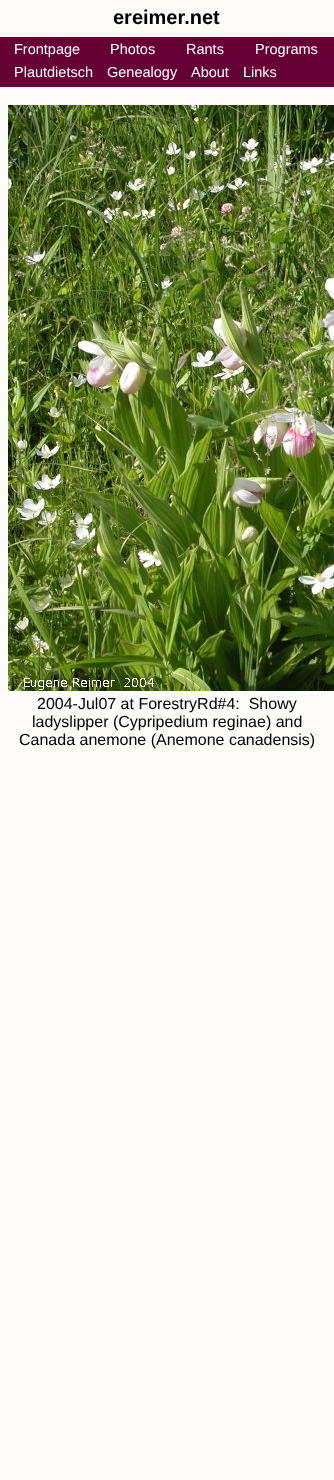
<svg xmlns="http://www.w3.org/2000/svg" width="334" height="1480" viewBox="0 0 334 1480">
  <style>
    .t1 { font: bold 20px Liberation Sans; fill: #000; }
    .t2 { font: 14.5px Liberation Sans; fill: #fff; }
    .t3 { font: 16px Liberation Sans; fill: #000; }
  </style>
  <rect width="100%" height="100%" fill="#fcfbf8"/>
  <text x="113" y="24" class="t1">ereimer.net</text>
  <rect x="0" y="37" width="334" height="50" fill="#660034"/>
  <text x="14" y="54" class="t2">Frontpage</text>
  <text x="110" y="54" class="t2">Photos</text>
  <text x="186" y="54" class="t2">Rants</text>
  <text x="255" y="54" class="t2">Programs</text>
  <text x="14" y="77" class="t2">Plautdietsch</text>
  <text x="107" y="77" class="t2">Genealogy</text>
  <text x="191" y="77" class="t2">About</text>
  <text x="243" y="77" class="t2">Links</text>
  <image x="8" y="105" width="326" height="586" href="images/1.png"/>
  <text x="37" y="709" class="t3" xml:space="preserve">2004-Jul07 at ForestryRd#4:  Showy</text>
  <text x="32" y="727" class="t3">ladyslipper (Cypripedium reginae) and</text>
  <text x="19" y="745" class="t3">Canada anemone (Anemone canadensis)</text>
</svg>
